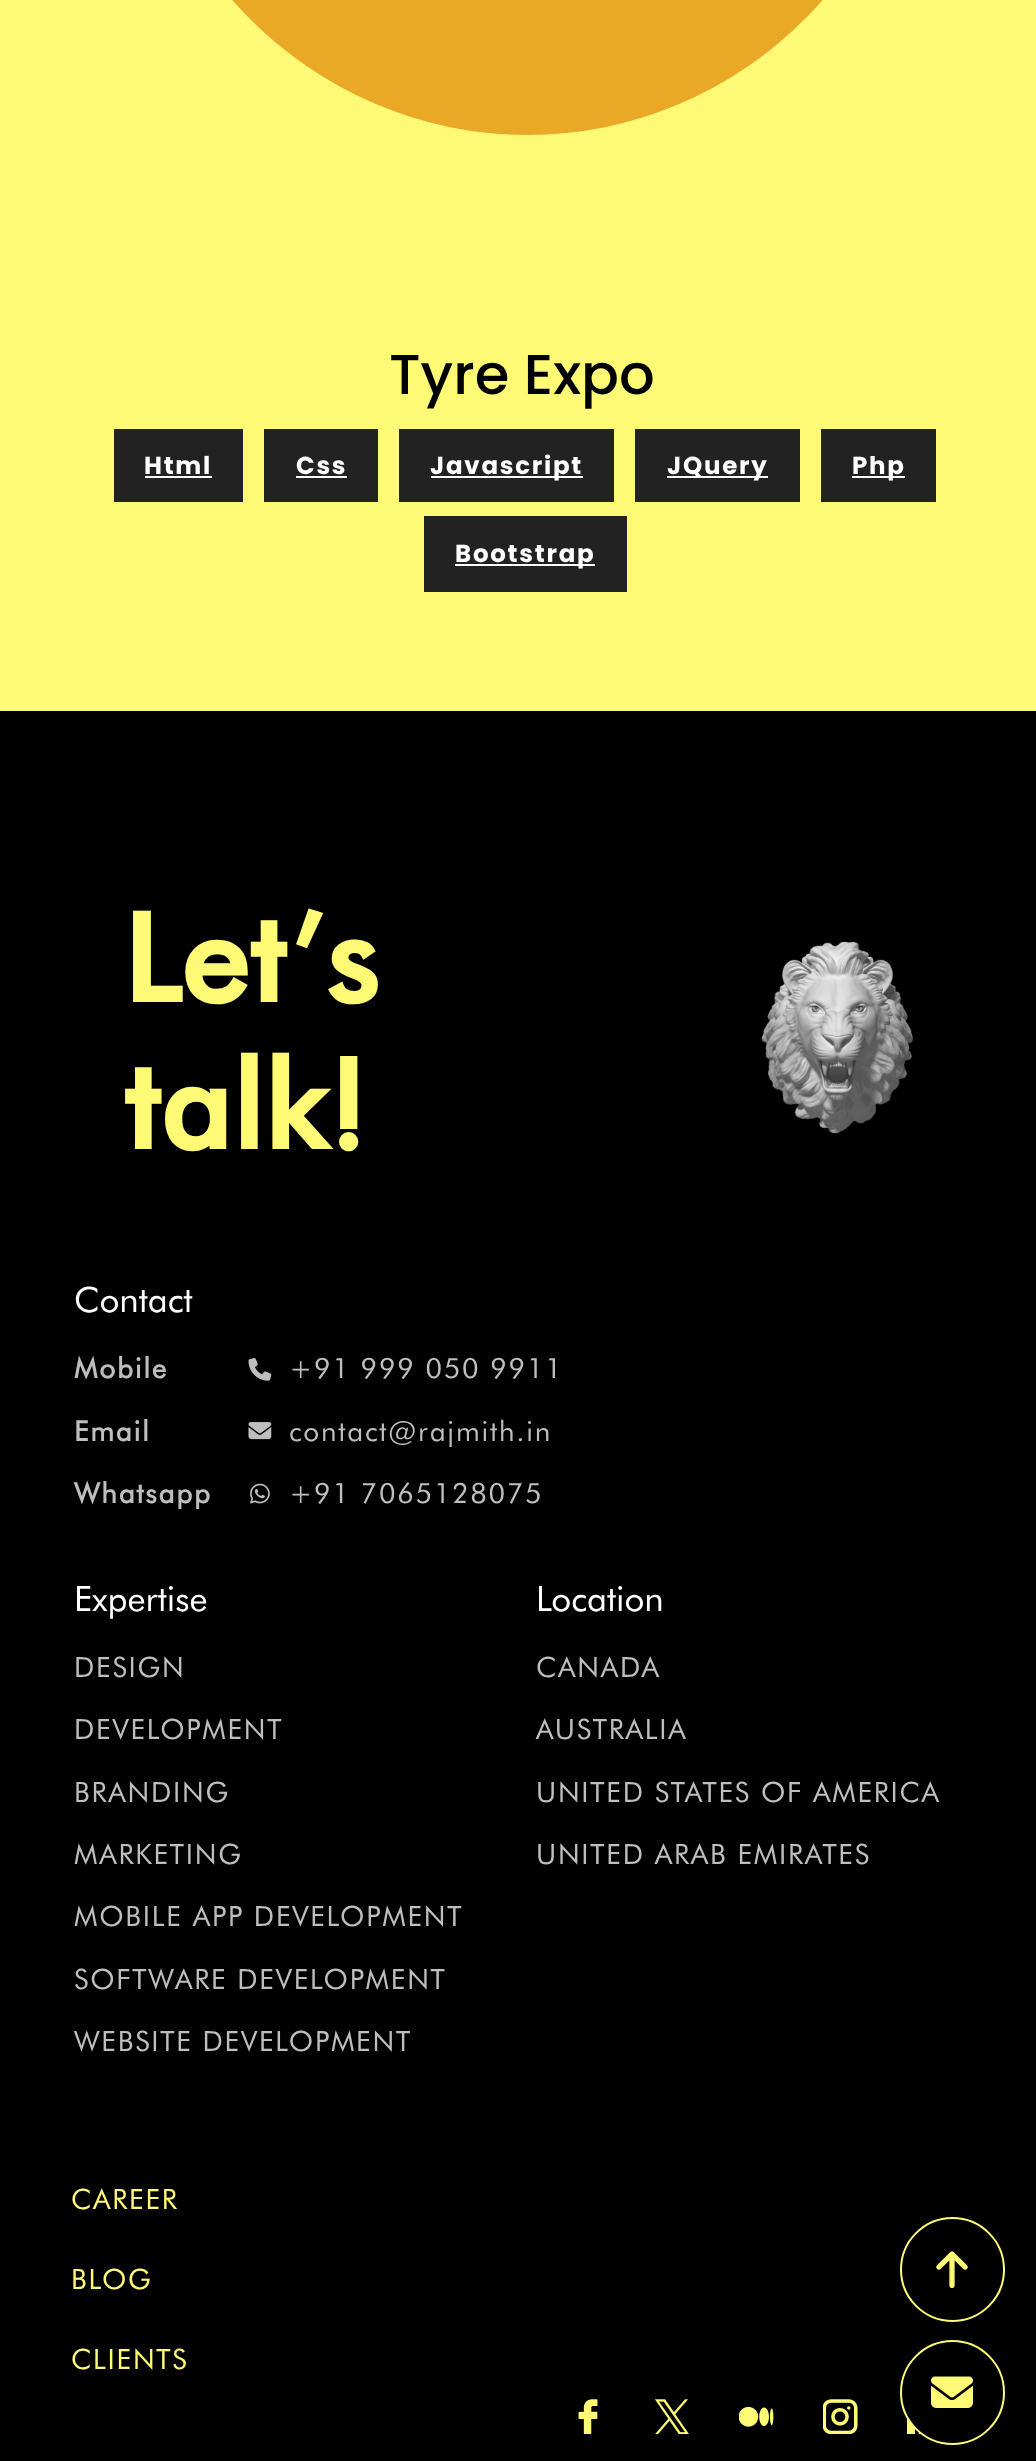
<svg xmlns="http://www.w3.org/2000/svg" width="1036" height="2461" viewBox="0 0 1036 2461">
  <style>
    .t1 { font: 500 56px Poppins; fill: #000; }
    .t2 { font: bold 24.5px Poppins; letter-spacing: 1.75px; fill: #fff; }
    .t3 { font: bold 122.5px 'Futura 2'; fill: #fffa76; }
    .t4 { font: 35px Futura; fill: #fff; }
    .t5 { font: bold 28px Futura; letter-spacing: 1.75px; fill: #bebebe; }
    .t6 { font: 28px Futura; letter-spacing: 1.75px; fill: #bebebe; }
    .t7 { font: 28px Futura; letter-spacing: 1.75px; fill: #fffa76; }
  </style>
  <rect width="100%" height="100%" fill="#fffa76"/>
  <ellipse cx="527.5" cy="-271" rx="396.5" ry="406" fill="#e9a826"/>
  <text x="389" y="394" class="t1">Tyre Expo</text>
  <rect x="114" y="429" width="129" height="73" fill="#222"/>
  <text x="144" y="474" class="t2">Html</text>
  <rect x="145" y="476" width="67" height="2" fill="#fff"/>
  <rect x="264" y="429" width="114" height="73" fill="#222"/>
  <text x="296" y="474" class="t2">Css</text>
  <rect x="296" y="476" width="51" height="2" fill="#fff"/>
  <rect x="399" y="429" width="215" height="73" fill="#222"/>
  <rect x="431" y="476" width="152" height="2" fill="#fff"/>
  <text x="430" y="474" class="t2">Javascript</text>
  <rect x="635" y="429" width="165" height="73" fill="#222"/>
  <rect x="667" y="476" width="101" height="2" fill="#fff"/>
  <text x="667" y="474" class="t2">JQuery</text>
  <rect x="821" y="429" width="115" height="73" fill="#222"/>
  <rect x="852" y="476" width="53" height="2" fill="#fff"/>
  <text x="852" y="474" class="t2">Php</text>
  <rect x="424" y="516" width="203" height="76" fill="#222"/>
  <rect x="455" y="564" width="140" height="2" fill="#fff"/>
  <text x="455" y="562" class="t2">Bootstrap</text>
  <rect x="0" y="711" width="1036" height="1750" fill="#000"/>
  <text x="123" y="1002" class="t3">Let’s</text>
  <text x="123" y="1149" class="t3">talk!</text>
  <image x="761" y="941" width="152" height="193" href="images/1.png"/>
  <text x="74" y="1312" class="t4">Contact</text>
  <text x="74" y="1378" class="t5">Mobile</text>
  <image x="248" y="1358" width="24" height="23" href="images/2.png"/>
  <text x="289" y="1378" class="t6">+91 999 050 9911</text>
  <text x="74" y="1441" class="t5">Email</text>
  <image x="248" y="1422" width="24" height="18" href="images/3.png"/>
  <text x="289" y="1441" class="t6">contact@rajmith.in</text>
  <text x="74" y="1503" class="t5">Whatsapp</text>
  <image x="250" y="1483" width="20" height="21" href="images/4.png"/>
  <text x="289" y="1503" class="t6">+91 7065128075</text>
  <text x="74" y="1611" class="t4">Expertise</text>
  <text x="74" y="1677" class="t6">DESIGN</text>
  <text x="74" y="1739" class="t6">DEVELOPMENT</text>
  <text x="74" y="1802" class="t6">BRANDING</text>
  <text x="74" y="1864" class="t6">MARKETING</text>
  <text x="74" y="1926" class="t6">MOBILE APP DEVELOPMENT</text>
  <text x="74" y="1989" class="t6">SOFTWARE DEVELOPMENT</text>
  <text x="74" y="2051" class="t6">WEBSITE DEVELOPMENT</text>
  <text x="536" y="1611" class="t4">Location</text>
  <text x="536" y="1677" class="t6">CANADA</text>
  <text x="536" y="1739" class="t6">AUSTRALIA</text>
  <text x="536" y="1802" class="t6">UNITED STATES OF AMERICA</text>
  <text x="536" y="1864" class="t6">UNITED ARAB EMIRATES</text>
  <text x="71" y="2209" class="t7">CAREER</text>
  <text x="71" y="2289" class="t7">BLOG</text>
  <text x="71" y="2369" class="t7">CLIENTS</text>
  <image x="578" y="2399" width="20" height="35" href="images/5.png"/>
  <image x="655" y="2399" width="34" height="35" href="images/6.png"/>
  <image x="739" y="2406" width="35" height="21" href="images/7.png"/>
  <image x="823" y="2399" width="35" height="35" href="images/8.png"/>
  <image x="907" y="2418" width="14" height="16" href="images/9.png"/>
  <circle cx="952.5" cy="2269.5" r="51.5" fill="none" stroke="#fffa76" stroke-width="2"/>
  <image x="936" y="2251" width="32" height="38" href="images/10.png"/>
  <circle cx="952.5" cy="2392.5" r="51.5" fill="#000" stroke="#fffa76" stroke-width="2"/>
  <image x="931" y="2376" width="42" height="32" href="images/11.png"/>
</svg>
